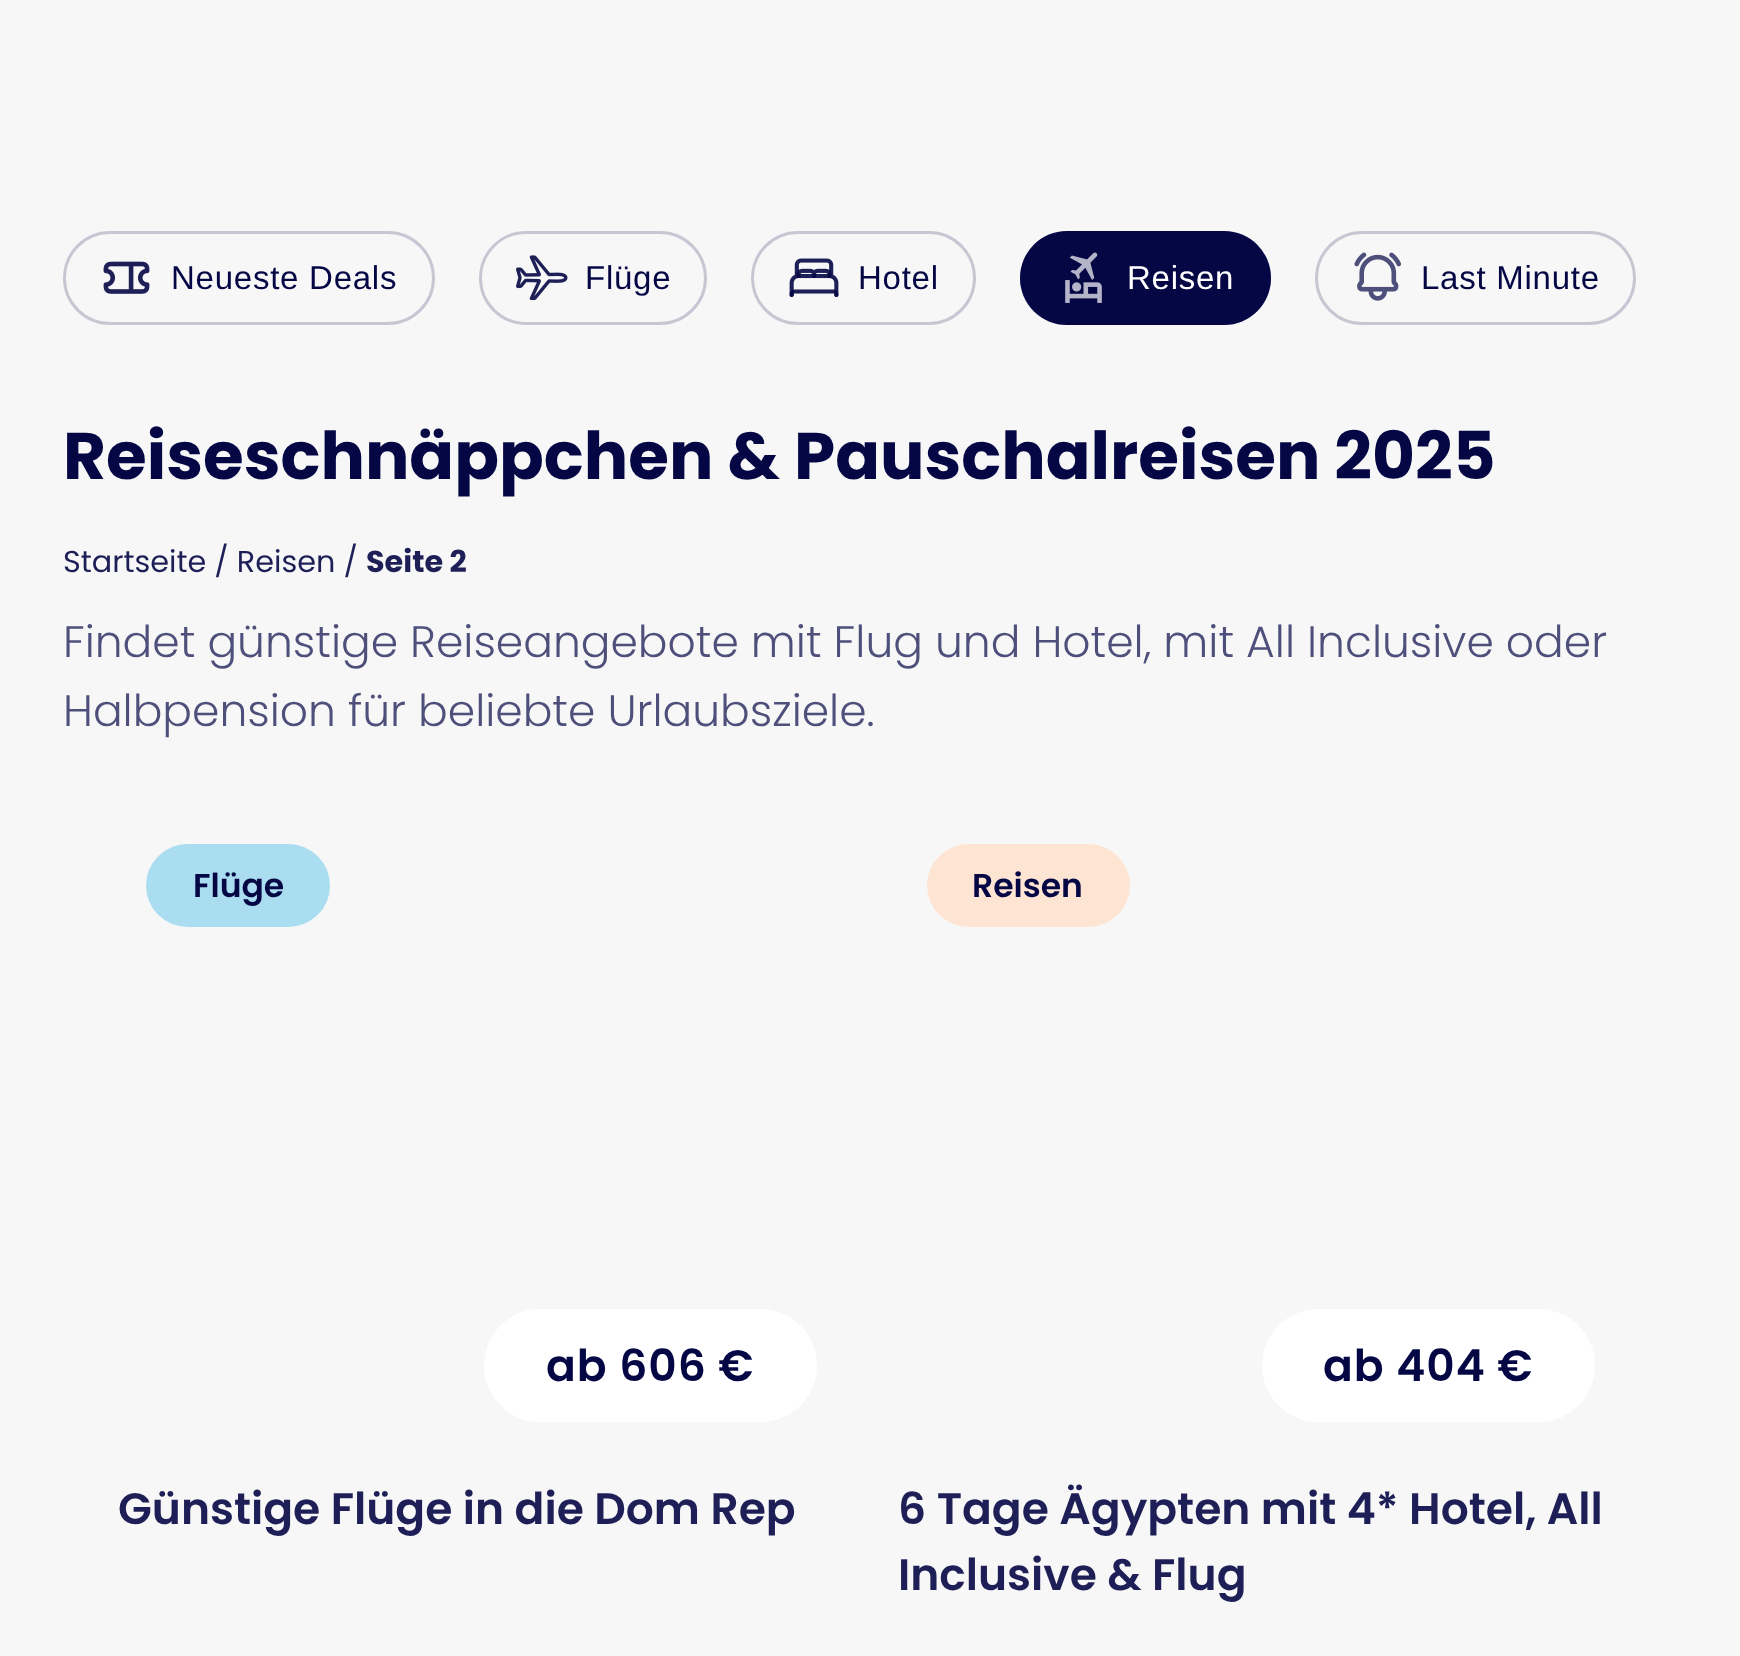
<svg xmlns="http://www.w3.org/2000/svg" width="1740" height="1656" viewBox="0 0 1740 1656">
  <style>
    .t1 { font: 33px Liberation Sans; letter-spacing: 0.75px; fill: #050745; }
    .t2 { font: 33px Liberation Sans; letter-spacing: 0.75px; fill: #fff; }
    .t3 { font: bold 66px Poppins; fill: #050745; }
    .t4 { font: 30.25px Poppins; fill: #1e1f57; }
    .t5 { font: bold 30.25px Poppins; fill: #1e1f57; }
    .t6 { font: 300 44px Poppins; fill: #4e4f7b; }
    .t7 { font: 600 33px Poppins; fill: #050745; }
    .t8 { font: 600 44px Poppins; letter-spacing: 1px; fill: #050745; }
    .t9 { font: 600 44px Poppins; fill: #1e1f57; }
  </style>
  <rect width="100%" height="100%" fill="#f7f7f7"/>
  <rect x="64.5" y="232.5" width="369" height="91" rx="45.5" fill="none" stroke="#c7c7d3" stroke-width="3"/>
  <image x="103" y="261" width="47" height="33" href="images/1.png"/>
  <text x="171" y="289" class="t1">Neueste Deals</text>
  <rect x="480.5" y="232.5" width="225" height="91" rx="45.5" fill="none" stroke="#c7c7d3" stroke-width="3"/>
  <image x="516" y="255" width="52" height="46" href="images/2.png"/>
  <text x="585" y="289" class="t1">Flüge</text>
  <rect x="752.5" y="232.5" width="222" height="91" rx="45.5" fill="none" stroke="#c7c7d3" stroke-width="3"/>
  <image x="789" y="258" width="50" height="39" href="images/3.png"/>
  <text x="858" y="289" class="t1">Hotel</text>
  <rect x="1020" y="231" width="251" height="94" rx="47" fill="#050745"/>
  <rect x="1021.5" y="232.5" width="248" height="91" rx="45.5" fill="none" stroke="#05074533" stroke-width="3"/>
  <image x="1065" y="252" width="37" height="51" href="images/4.png"/>
  <text x="1127" y="289" class="t2">Reisen</text>
  <rect x="1316.5" y="232.5" width="318" height="91" rx="45.5" fill="none" stroke="#c7c7d3" stroke-width="3"/>
  <image x="1354" y="252" width="47" height="49" href="images/5.png"/>
  <text x="1421" y="289" class="t1">Last Minute</text>
  <text x="63" y="479" class="t3">Reiseschnäppchen &amp; Pauschalreisen 2025</text>
  <text x="63" y="572" class="t4">Startseite / Reisen /</text>
  <text x="366" y="572" class="t5">Seite 2</text>
  <text x="63" y="657" class="t6">Findet günstige Reiseangebote mit Flug und Hotel, mit All Inclusive oder</text>
  <text x="63" y="726" class="t6">Halbpension für beliebte Urlaubsziele.</text>
  <rect x="146" y="844" width="184" height="83" rx="41.5" fill="#abddf1"/>
  <text x="193" y="897" class="t7">Flüge</text>
  <rect x="484" y="1309" width="333" height="113" rx="56.5" fill="#fff"/>
  <text x="546" y="1381" class="t8">ab 606 €</text>
  <text x="118" y="1524" class="t9">Günstige Flüge in die Dom Rep</text>
  <rect x="927" y="844" width="203" height="83" rx="41.5" fill="#fee5d3"/>
  <text x="972" y="897" class="t7">Reisen</text>
  <rect x="1262" y="1309" width="333" height="113" rx="56.5" fill="#fff"/>
  <text x="1323" y="1381" class="t8">ab 404 €</text>
  <text x="898" y="1524" class="t9">6 Tage Ägypten mit 4* Hotel, All</text>
  <text x="898" y="1590" class="t9">Inclusive &amp; Flug</text>
</svg>
